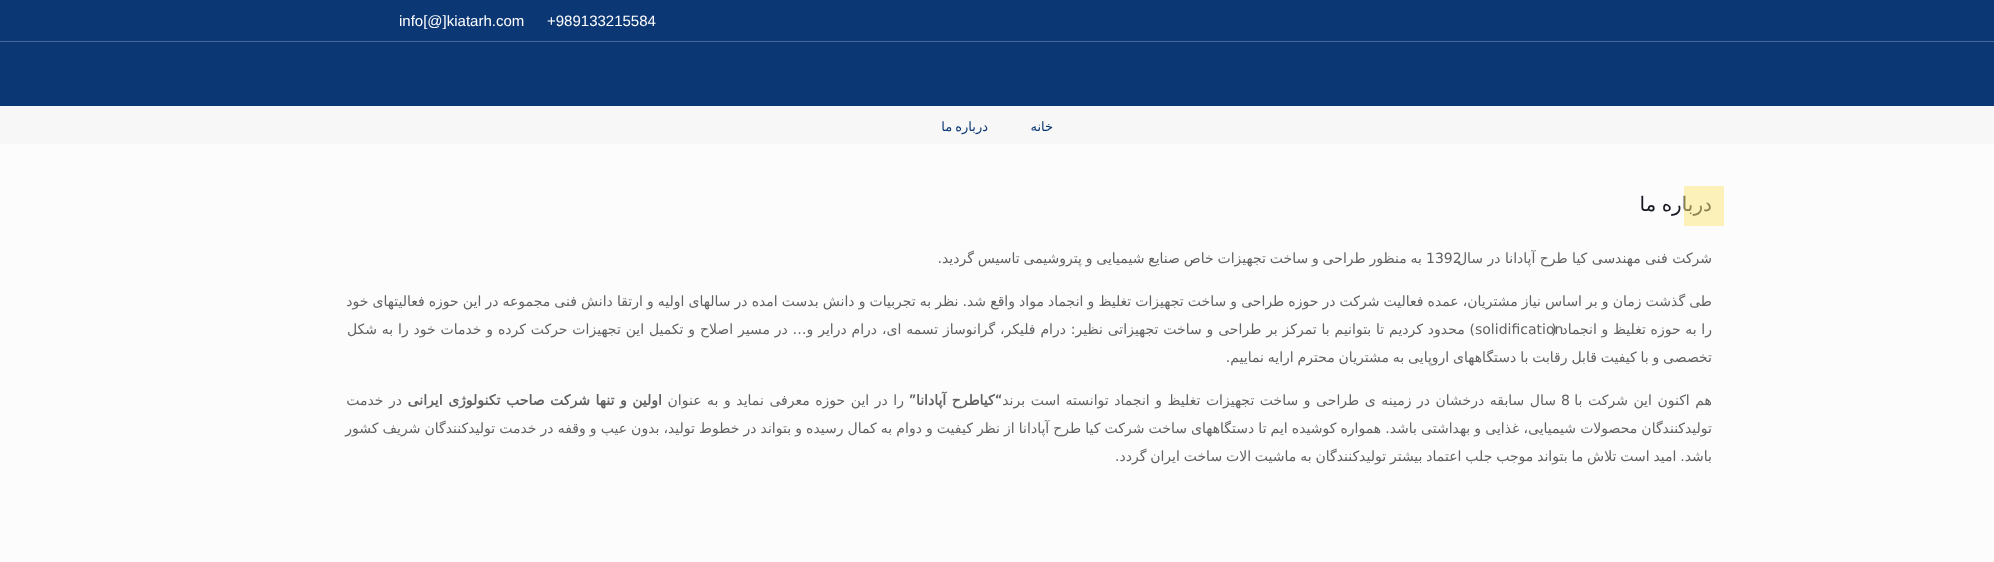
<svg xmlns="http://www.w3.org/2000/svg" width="1994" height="562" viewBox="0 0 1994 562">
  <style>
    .t1 { font: 15px Liberation Sans; fill: #fff; }
    .t2 { font: 13px DejaVu Sans; direction: rtl; fill: #0b3774; }
    .t3 { font: 20px DejaVu Sans; direction: rtl; fill: #161922; }
    .t4 { font: 14px DejaVu Sans; direction: rtl; fill: #626262; }
    .t5 { font: 14px DejaVu Sans; fill: #626262; }
    .t6 { font: bold 14px DejaVu Sans; direction: rtl; fill: #626262; }
  </style>
  <rect width="100%" height="100%" fill="#fcfcfc"/>
  <rect x="0" y="0" width="1994" height="106" fill="#0b3774"/>
  <rect x="0" y="41" width="1994" height="1" fill="#486997"/>
  <text x="547" y="26" class="t1">+989133215584</text>
  <text x="399" y="26" class="t1">info[@]kiatarh.com</text>
  <rect x="0" y="106" width="1994" height="38" fill="#f7f7f7"/>
  <text x="1053" y="131" class="t2">خانه</text>
  <text x="988" y="131" word-spacing="-1" class="t2">درباره ما</text>
  <text x="1712" y="211" word-spacing="-1" class="t3">درباره ما</text>
  <rect x="1684" y="186" width="40" height="40" fill="#f9e67782"/>
  <text x="1422" y="263" word-spacing="-0.6" class="t4">به منظور طراحی و ساخت تجهیزات خاص صنایع شیمیایی و پتروشیمی تاسیس گردید.</text>
  <text x="1426" y="263" class="t5">1392</text>
  <text x="1712" y="263" class="t4">شرکت فنی مهندسی کیا طرح آپادانا در سال</text>
  <text x="1712" y="306" word-spacing="-0.35" class="t4">طی گذشت زمان و بر اساس نیاز مشتریان، عمده فعالیت شرکت در حوزه طراحی و ساخت تجهیزات تغلیظ و انجماد مواد واقع شد. نظر به تجربیات و دانش بدست امده در سالهای اولیه و ارتقا دانش فنی مجموعه در این حوزه فعالیتهای خود</text>
  <text x="1475" y="334" class="t5">solidification</text>
  <text x="1712" y="334" word-spacing="0.25" class="t4">را به حوزه تغلیظ و انجماد (</text>
  <text x="1475" y="334" word-spacing="0.4" class="t4">) محدود کردیم تا بتوانیم با تمرکز بر طراحی و ساخت تجهیزاتی نظیر: درام فلیکر، گرانوساز تسمه ای، درام درایر و… در مسیر اصلاح و تکمیل این تجهیزات حرکت کرده و خدمات خود را به شکل</text>
  <text x="1712" y="362" word-spacing="-0.6" class="t4">تخصصی و با کیفیت قابل رقابت با دستگاههای اروپایی به مشتریان محترم ارایه نماییم.</text>
  <text x="1712" y="405" word-spacing="1.1" class="t4">هم اکنون این شرکت با</text>
  <text x="1561" y="405" class="t5">8</text>
  <text x="1556" y="405" word-spacing="1.1" class="t4">سال سابقه درخشان در زمینه ی طراحی و ساخت تجهیزات تغلیظ و انجماد توانسته است برند</text>
  <text x="1002" y="405" word-spacing="1" class="t6">“کیاطرح آپادانا”</text>
  <text x="904" y="405" word-spacing="1.1" class="t4">را در این حوزه معرفی نماید و به عنوان</text>
  <text x="662" y="405" word-spacing="1.1" class="t6">اولین و تنها شرکت صاحب تکنولوژی ایرانی</text>
  <text x="402" y="405" word-spacing="1.1" class="t4">در خدمت</text>
  <text x="1712" y="433" word-spacing="-0.35" class="t4">تولیدکنندگان محصولات شیمیایی، غذایی و بهداشتی باشد. همواره کوشیده ایم تا دستگاههای ساخت شرکت کیا طرح آپادانا از نظر کیفیت و دوام به کمال رسیده و بتواند در خطوط تولید، بدون عیب و وقفه در خدمت تولیدکنندگان شریف کشور</text>
  <text x="1712" y="461" word-spacing="-0.6" class="t4">باشد. امید است تلاش ما بتواند موجب جلب اعتماد بیشتر تولیدکنندگان به ماشیت الات ساخت ایران گردد.</text>
</svg>
